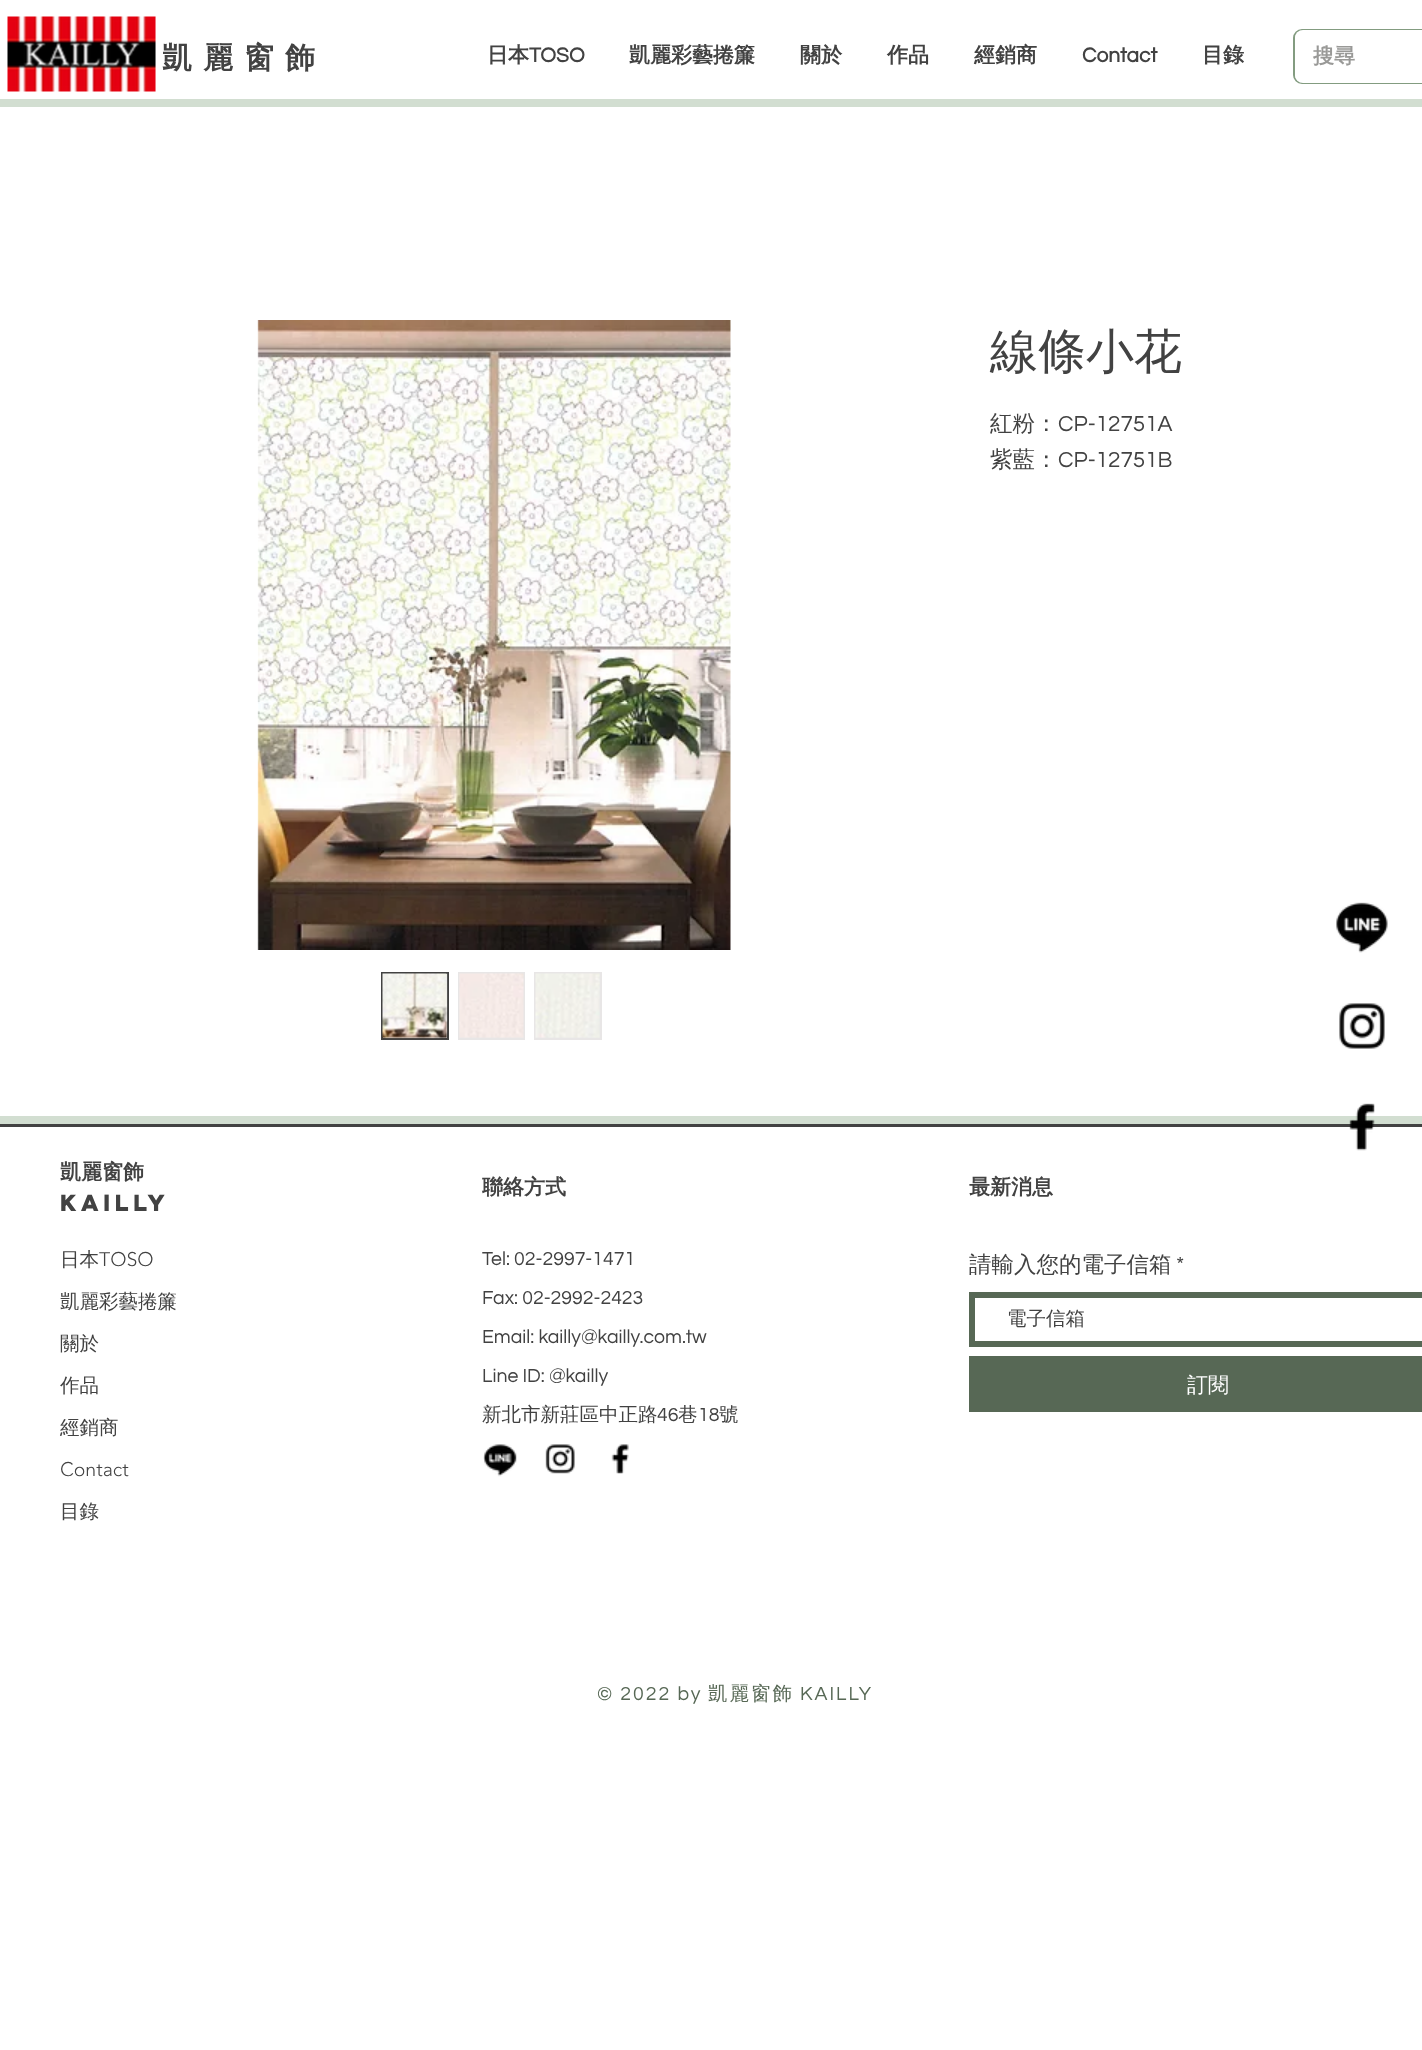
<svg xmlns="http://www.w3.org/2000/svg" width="1422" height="2050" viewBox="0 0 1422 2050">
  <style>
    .t1 { font: bold 30px WenQuanYi Zen Hei; letter-spacing: 11px; fill: #424242; }
    .t2 { font: bold 21px WenQuanYi Zen Hei; fill: #424242; }
    .t3 { font: bold 21px Questrial; fill: #424242; }
    .t4 { font: bold 21px WenQuanYi Zen Hei; fill: #999997; }
    .t5 { font: 500 48px WenQuanYi Zen Hei; fill: #424242; }
    .t6 { font: 500 22.5px WenQuanYi Zen Hei; fill: #424242; }
    .t7 { font: 22.5px Questrial; fill: #424242; }
    .t8 { font: bold 21px 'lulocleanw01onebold'; fill: #424242; }
    .t9 { font: 500 19.5px WenQuanYi Zen Hei; fill: #424242; }
    .t10 { font: 300 19.5px 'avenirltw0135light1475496'; fill: #424242; }
    .t11 { font: 19.5px Questrial; fill: #424242; }
    .t12 { font: 500 21px WenQuanYi Zen Hei; fill: #fff; }
    .t13 { font: 19.5px Questrial; letter-spacing: 2px; fill: #576855; }
    .t14 { font: 500 19.5px WenQuanYi Zen Hei; letter-spacing: 2px; fill: #576855; }
  </style>
  <rect width="100%" height="100%" fill="#fff"/>
  <image x="7" y="16" width="149" height="76" href="images/1.png"/>
  <text x="162" y="68" class="t1">凱麗窗飾</text>
  <text x="487" y="62" class="t2">日本</text>
  <text x="529" y="62" class="t3">TOSO</text>
  <text x="629" y="62" class="t2">凱麗彩藝捲簾</text>
  <text x="800" y="62" class="t2">關於</text>
  <text x="887" y="62" class="t2">作品</text>
  <text x="974" y="62" class="t2">經銷商</text>
  <text x="1082" y="62" class="t3">Contact</text>
  <text x="1202" y="62" class="t2">目錄</text>
  <rect x="1294" y="30" width="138" height="53" rx="8" fill="none" stroke="#839c80" stroke-width="2"/>
  <rect x="1295" y="30" width="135" height="53" rx="8" fill="#fff"/>
  <text x="1313" y="63" class="t4">搜尋</text>
  <rect x="0" y="99" width="1422" height="8" fill="#d2ded1"/>
  <image x="257" y="320" width="474" height="630" href="images/2.png"/>
  <rect x="382" y="973" width="66" height="66" fill="#e8e6e6" stroke="#424242" stroke-width="2"/>
  <image x="382" y="973" width="66" height="66" href="images/3.png"/>
  <rect x="458" y="972" width="67" height="68" fill="#e8e6e6"/>
  <image x="459" y="973" width="65" height="65" href="images/4.png"/>
  <rect x="534" y="972" width="68" height="68" fill="#e8e6e6"/>
  <image x="535" y="973" width="65" height="65" href="images/5.png"/>
  <text x="990" y="368" class="t5">線條小花</text>
  <text x="990" y="431" class="t6">紅粉：</text>
  <text x="1058" y="431" class="t7">CP-12751A</text>
  <text x="990" y="467" class="t6">紫藍：</text>
  <text x="1058" y="467" class="t7">CP-12751B</text>
  <image x="1336" y="902" width="52" height="51" href="images/6.png"/>
  <image x="1339" y="1003" width="46" height="46" href="images/7.png"/>
  <rect x="0" y="1116" width="1422" height="8" fill="#d2ded1"/>
  <rect x="0" y="1124" width="1422" height="3" fill="#424242"/>
  <image x="1349" y="1103" width="26" height="48" href="images/8.png"/>
  <text x="60" y="1179" class="t2">凱麗窗飾</text>
  <text x="60" y="1211" class="t8">KAILLY</text>
  <text x="482" y="1194" class="t2">聯絡方式</text>
  <text x="969" y="1194" class="t2">最新消息</text>
  <text x="60" y="1266" class="t9">日本</text>
  <text x="99" y="1266" class="t10">TOSO</text>
  <text x="60" y="1308" class="t9">凱麗彩藝捲簾</text>
  <text x="60" y="1350" class="t9">關於</text>
  <text x="60" y="1392" class="t9">作品</text>
  <text x="60" y="1434" class="t9">經銷商</text>
  <text x="60" y="1476" class="t10">Contact</text>
  <text x="60" y="1518" class="t9">目錄</text>
  <text x="482" y="1265" class="t11">Tel: 02-2997-1471</text>
  <text x="482" y="1304" class="t11">Fax: 02-2992-2423</text>
  <text x="482" y="1343" class="t11">Email: kailly@kailly.com.tw</text>
  <text x="482" y="1382" class="t11">Line ID: @kailly</text>
  <text x="482" y="1421" class="t9">新北市新莊區中正路</text>
  <text x="657" y="1421" class="t11">46</text>
  <text x="678" y="1421" class="t9">巷</text>
  <text x="698" y="1421" class="t11">18</text>
  <text x="719" y="1421" class="t9">號</text>
  <text x="969" y="1272" class="t6">請輸入您的電子信箱</text>
  <text x="1176" y="1272" class="t7">*</text>
  <rect x="972" y="1295" width="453" height="49" fill="none" stroke="#576855" stroke-width="6"/>
  <text x="1007" y="1325" class="t9">電子信箱</text>
  <rect x="969" y="1356" width="453" height="56" fill="#576855"/>
  <text x="1187" y="1392" class="t12">訂閱</text>
  <image x="483" y="1444" width="34" height="33" href="images/9.png"/>
  <image x="545" y="1444" width="30" height="30" href="images/10.png"/>
  <image x="611" y="1444" width="18" height="30" href="images/11.png"/>
  <text x="597" y="1700" class="t13">© 2022 by</text>
  <text x="708" y="1700" class="t14">凱麗窗飾</text>
  <text x="800" y="1700" class="t13">KAILLY</text>
</svg>
